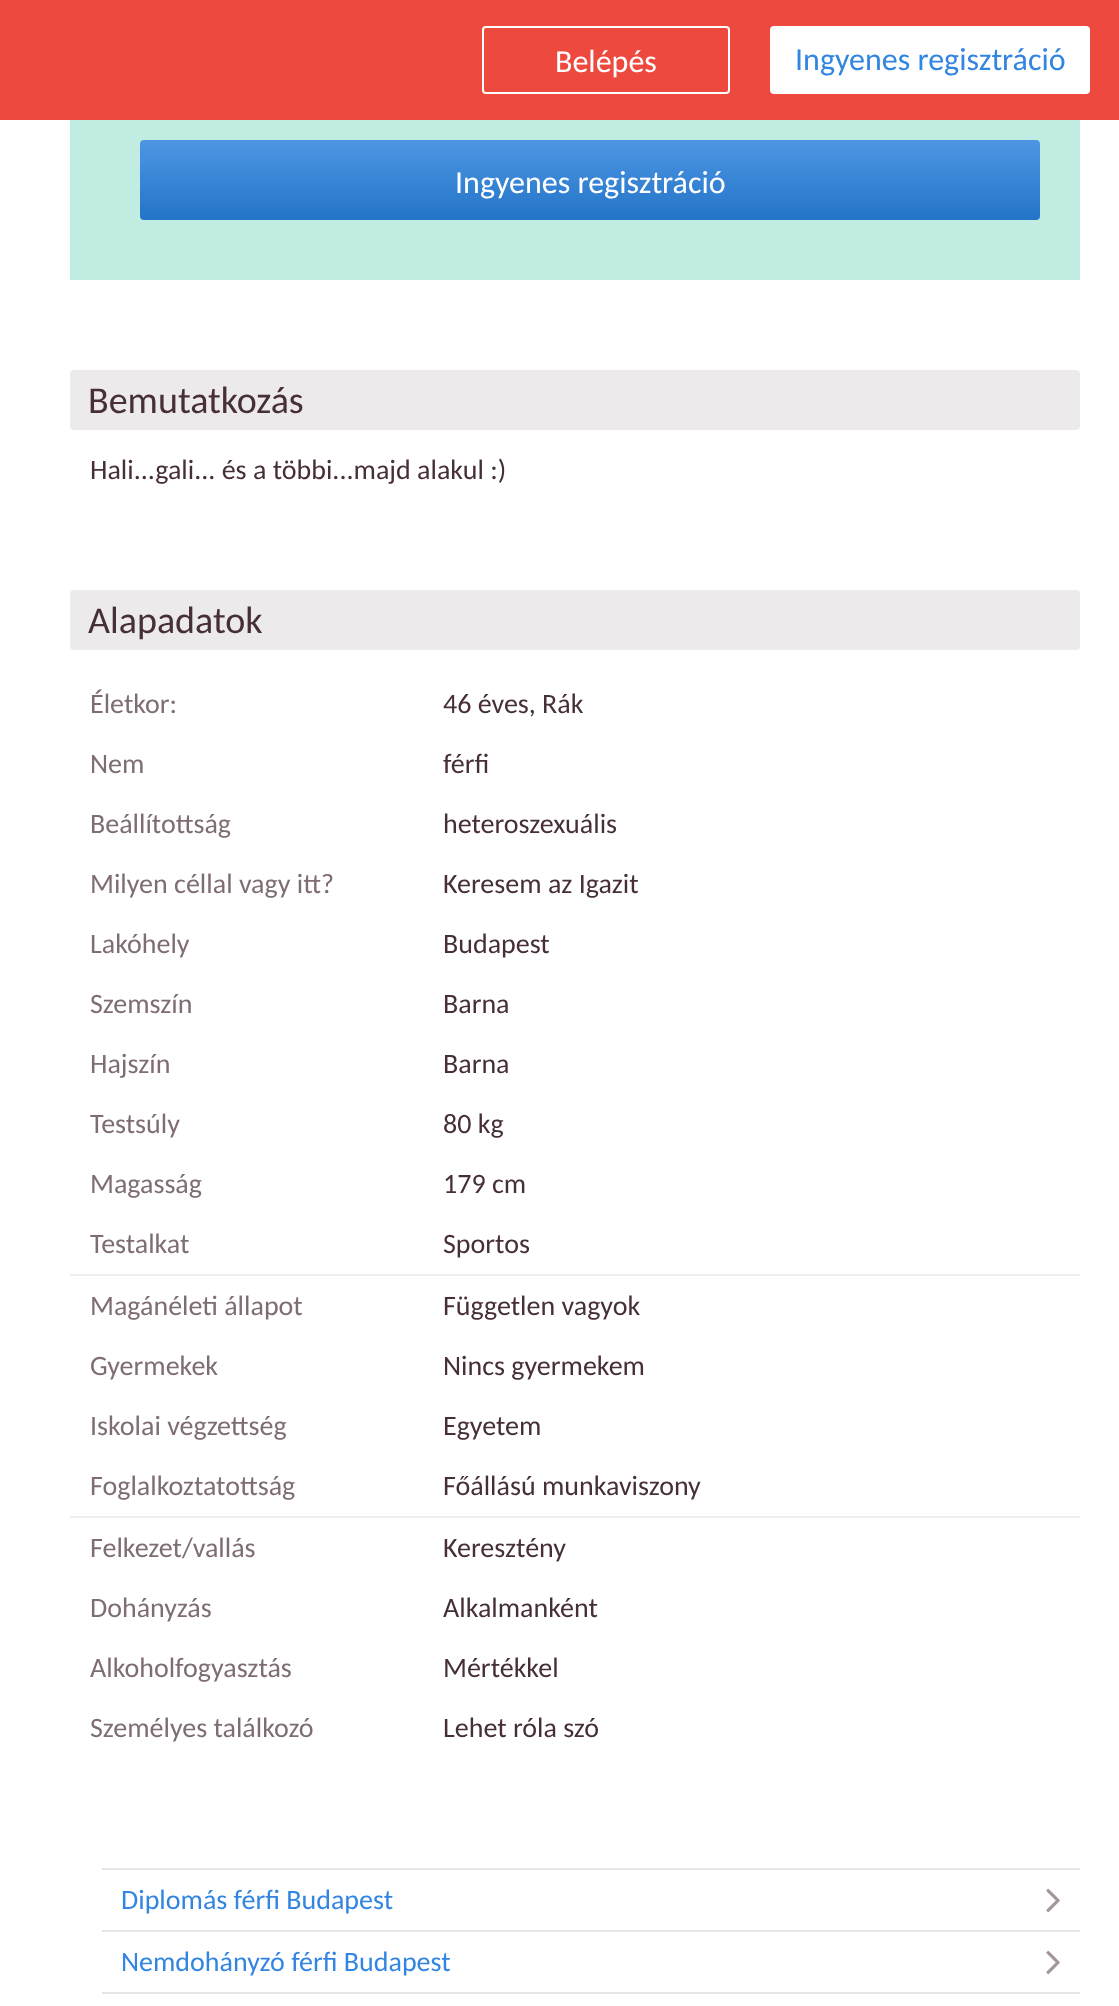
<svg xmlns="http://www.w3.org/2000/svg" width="1119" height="2006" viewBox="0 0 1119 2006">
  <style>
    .t1 { font: 32px Carlito; fill: #fff; }
    .t2 { font: 32px Carlito; fill: #3285e0; }
    .t3 { font: 38px Carlito; fill: #462f36; }
    .t4 { font: 28px Carlito; fill: #462f36; }
    .t5 { font: 28px Carlito; fill: #7e6d72; }
    .t6 { font: 28px Carlito; fill: #3285e0; }
  </style>
  <defs>
    <linearGradient id="g1" gradientUnits="userSpaceOnUse" x1="590" y1="140" x2="590" y2="220"><stop offset="0" stop-color="#4e96e4"/><stop offset="1" stop-color="#2374c7"/></linearGradient>
  </defs>
  <rect width="100%" height="100%" fill="#fff"/>
  <rect x="0" y="0" width="1119" height="120" fill="#ed493e"/>
  <rect x="483" y="27" width="246" height="66" rx="3" fill="none" stroke="#fff" stroke-width="2"/>
  <text x="555" y="72" class="t1">Belépés</text>
  <rect x="770" y="26" width="320" height="68" rx="4" fill="#fff"/>
  <text x="795" y="70" class="t2">Ingyenes regisztráció</text>
  <rect x="70" y="120" width="1010" height="160" fill="#c0ece1"/>
  <rect x="140" y="140" width="900" height="80" rx="4" fill="url(#g1)"/>
  <text x="455" y="193" class="t1">Ingyenes regisztráció</text>
  <rect x="70" y="370" width="1010" height="60" rx="4" fill="#edeaeb"/>
  <text x="88" y="413" class="t3">Bemutatkozás</text>
  <text x="90" y="479" class="t4">Hali...gali... és a többi...majd alakul :)</text>
  <rect x="70" y="590" width="1010" height="60" rx="4" fill="#edeaeb"/>
  <text x="88" y="633" class="t3">Alapadatok</text>
  <text x="90" y="713" class="t5">Életkor:</text>
  <text x="443" y="713" class="t4">46 éves, Rák</text>
  <text x="90" y="773" class="t5">Nem</text>
  <text x="443" y="773" class="t4">férfi</text>
  <text x="90" y="833" class="t5">Beállítottság</text>
  <text x="443" y="833" class="t4">heteroszexuális</text>
  <text x="90" y="893" class="t5">Milyen céllal vagy itt?</text>
  <text x="443" y="893" class="t4">Keresem az Igazit</text>
  <text x="90" y="953" class="t5">Lakóhely</text>
  <text x="443" y="953" class="t4">Budapest</text>
  <text x="90" y="1013" class="t5">Szemszín</text>
  <text x="443" y="1013" class="t4">Barna</text>
  <text x="90" y="1073" class="t5">Hajszín</text>
  <text x="443" y="1073" class="t4">Barna</text>
  <text x="90" y="1133" class="t5">Testsúly</text>
  <text x="443" y="1133" class="t4">80 kg</text>
  <text x="90" y="1193" class="t5">Magasság</text>
  <text x="443" y="1193" class="t4">179 cm</text>
  <text x="90" y="1253" class="t5">Testalkat</text>
  <text x="443" y="1253" class="t4">Sportos</text>
  <rect x="70" y="1274" width="1010" height="2" fill="#eee"/>
  <text x="90" y="1315" class="t5">Magánéleti állapot</text>
  <text x="443" y="1315" class="t4">Független vagyok</text>
  <text x="90" y="1375" class="t5">Gyermekek</text>
  <text x="443" y="1375" class="t4">Nincs gyermekem</text>
  <text x="90" y="1435" class="t5">Iskolai végzettség</text>
  <text x="443" y="1435" class="t4">Egyetem</text>
  <text x="90" y="1495" class="t5">Foglalkoztatottság</text>
  <text x="443" y="1495" class="t4">Főállású munkaviszony</text>
  <rect x="70" y="1516" width="1010" height="2" fill="#eee"/>
  <text x="90" y="1557" class="t5">Felkezet/vallás</text>
  <text x="443" y="1557" class="t4">Keresztény</text>
  <text x="90" y="1617" class="t5">Dohányzás</text>
  <text x="443" y="1617" class="t4">Alkalmanként</text>
  <text x="90" y="1677" class="t5">Alkoholfogyasztás</text>
  <text x="443" y="1677" class="t4">Mértékkel</text>
  <text x="90" y="1737" class="t5">Személyes találkozó</text>
  <text x="443" y="1737" class="t4">Lehet róla szó</text>
  <rect x="102" y="1868" width="978" height="2" fill="#e5e5e5"/>
  <text x="121" y="1909" class="t6">Diplomás férfi Budapest</text>
  <image x="1046" y="1888" width="14" height="25" href="images/1.png"/>
  <rect x="102" y="1930" width="978" height="2" fill="#e5e5e5"/>
  <text x="121" y="1971" class="t6">Nemdohányzó férfi Budapest</text>
  <image x="1046" y="1950" width="14" height="25" href="images/1.png"/>
  <rect x="102" y="1992" width="978" height="2" fill="#e5e5e5"/>
</svg>
